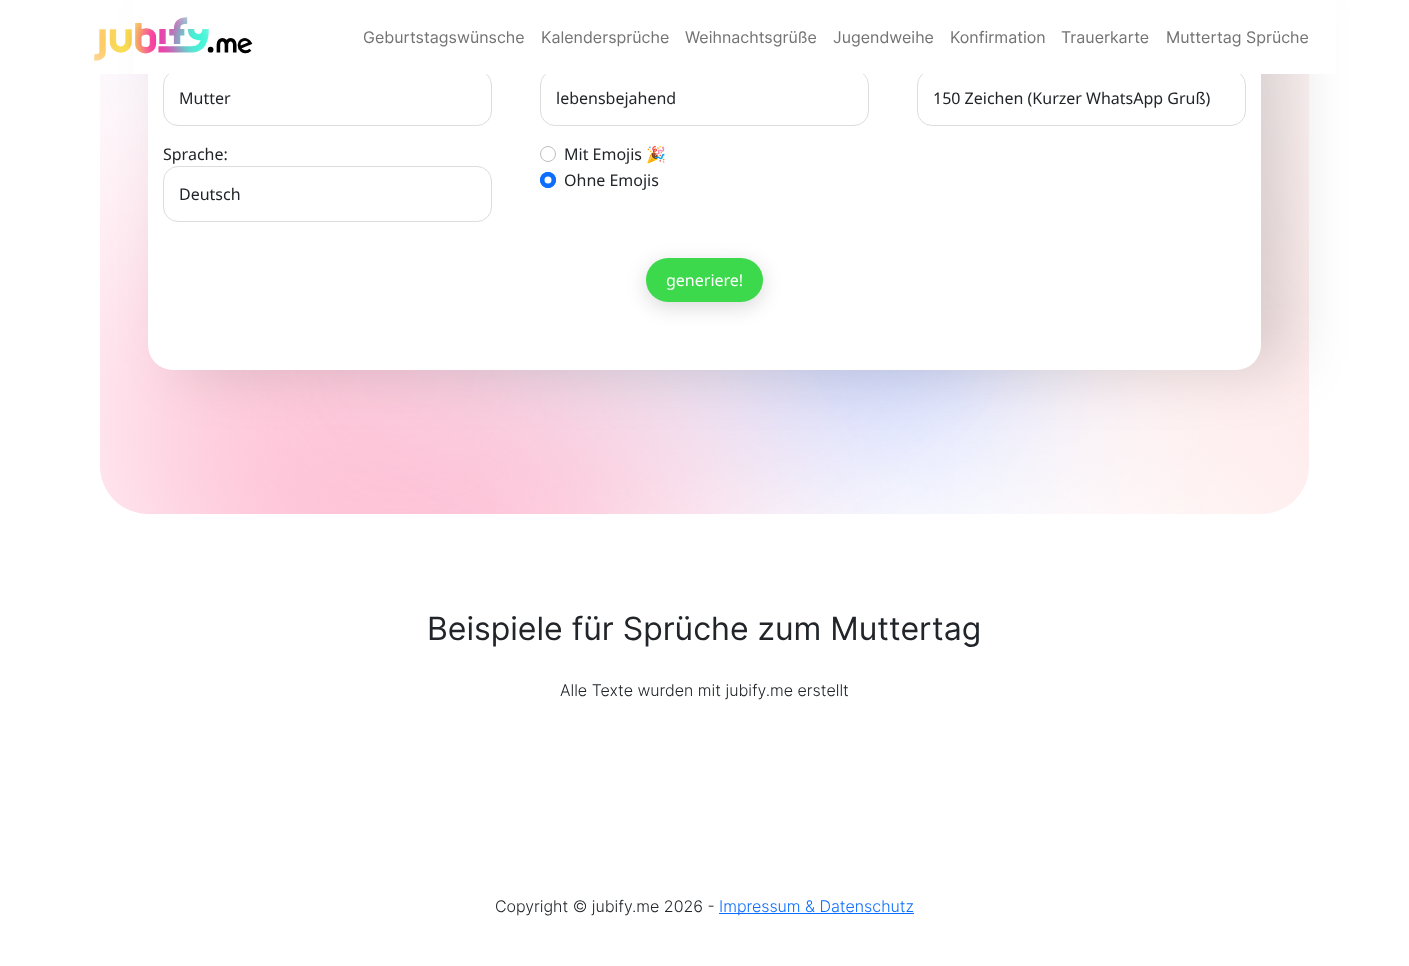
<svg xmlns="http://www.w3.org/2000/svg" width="1409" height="966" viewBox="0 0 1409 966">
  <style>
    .t1 { font: 16px Inter; fill: #737373; }
    .t2 { font: 16px Noto Sans; fill: #212529; }
    .t3 { font: 16px Noto Color Emoji; fill: #212529; }
    .t4 { font: 16px Noto Sans; fill: #fff; }
    .t5 { font: 32px Inter; fill: #212529; }
    .t6 { font: 300 16px Inter; fill: #212529; }
    .t7 { font: 300 16px Inter; fill: #0d6efd; }
  </style>
  <rect width="100%" height="100%" fill="#fff"/>
  <image x="100" y="74" width="1209" height="440" href="images/2.png"/>
  <rect x="178" y="-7" width="1113" height="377" rx="25" fill="#00000026" filter="blur(30px)"/>
  <rect x="148" y="-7" width="1113" height="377" rx="25" fill="#fff"/>
  <rect x="163.5" y="70.5" width="328" height="55" rx="14.5" fill="none" stroke="#ddd"/>
  <rect x="540.5" y="70.5" width="328" height="55" rx="14.5" fill="none" stroke="#ddd"/>
  <rect x="917.5" y="70.5" width="328" height="55" rx="14.5" fill="none" stroke="#ddd"/>
  <rect x="133" y="0" width="1203" height="74" fill="#fff"/>
  <image x="94" y="17" width="159" height="44" href="images/1.png"/>
  <text x="363" y="43" class="t1">Geburtstagswünsche</text>
  <text x="541" y="43" class="t1">Kalendersprüche</text>
  <text x="685" y="43" class="t1">Weihnachtsgrüße</text>
  <text x="833" y="43" class="t1">Jugendweihe</text>
  <text x="950" y="43" class="t1">Konfirmation</text>
  <text x="1061" y="43" class="t1">Trauerkarte</text>
  <text x="1166" y="43" class="t1">Muttertag Sprüche</text>
  <text x="179" y="104" class="t2">Mutter</text>
  <text x="556" y="104" class="t2">lebensbejahend</text>
  <text x="933" y="104" class="t2">150 Zeichen (Kurzer WhatsApp Gruß)</text>
  <text x="163" y="160" class="t2">Sprache:</text>
  <rect x="163.5" y="166.5" width="328" height="55" rx="14.5" fill="none" stroke="#ddd"/>
  <text x="179" y="200" class="t2">Deutsch</text>
  <circle cx="548" cy="154" r="7.5" fill="none" stroke="#bfbfbf"/>
  <text x="564" y="160" class="t2">Mit Emojis</text>
  <text x="646" y="160" class="t3">🎉</text>
  <circle cx="548" cy="180" r="8" fill="#0d6efd"/>
  <circle cx="548" cy="180" r="3.5" fill="#fff"/>
  <circle cx="548" cy="180" r="7.5" fill="none" stroke="#0d6efd"/>
  <text x="564" y="186" class="t2">Ohne Emojis</text>
  <rect x="646" y="263" width="117" height="44" rx="22" fill="#00000026" filter="blur(10px)"/>
  <rect x="646" y="258" width="117" height="44" rx="22" fill="#3dd94c"/>
  <text x="666" y="286" class="t4">generiere!</text>
  <text x="427" y="640" class="t5">Beispiele für Sprüche zum Muttertag</text>
  <text x="560" y="696" class="t6">Alle Texte wurden mit jubify.me erstellt</text>
  <text x="495" y="912" class="t6">Copyright © jubify.me 2026 -</text>
  <rect x="719" y="913" width="195" height="1" fill="#0d6efd"/>
  <text x="719" y="912" class="t7">Impressum &amp; Datenschutz</text>
</svg>
